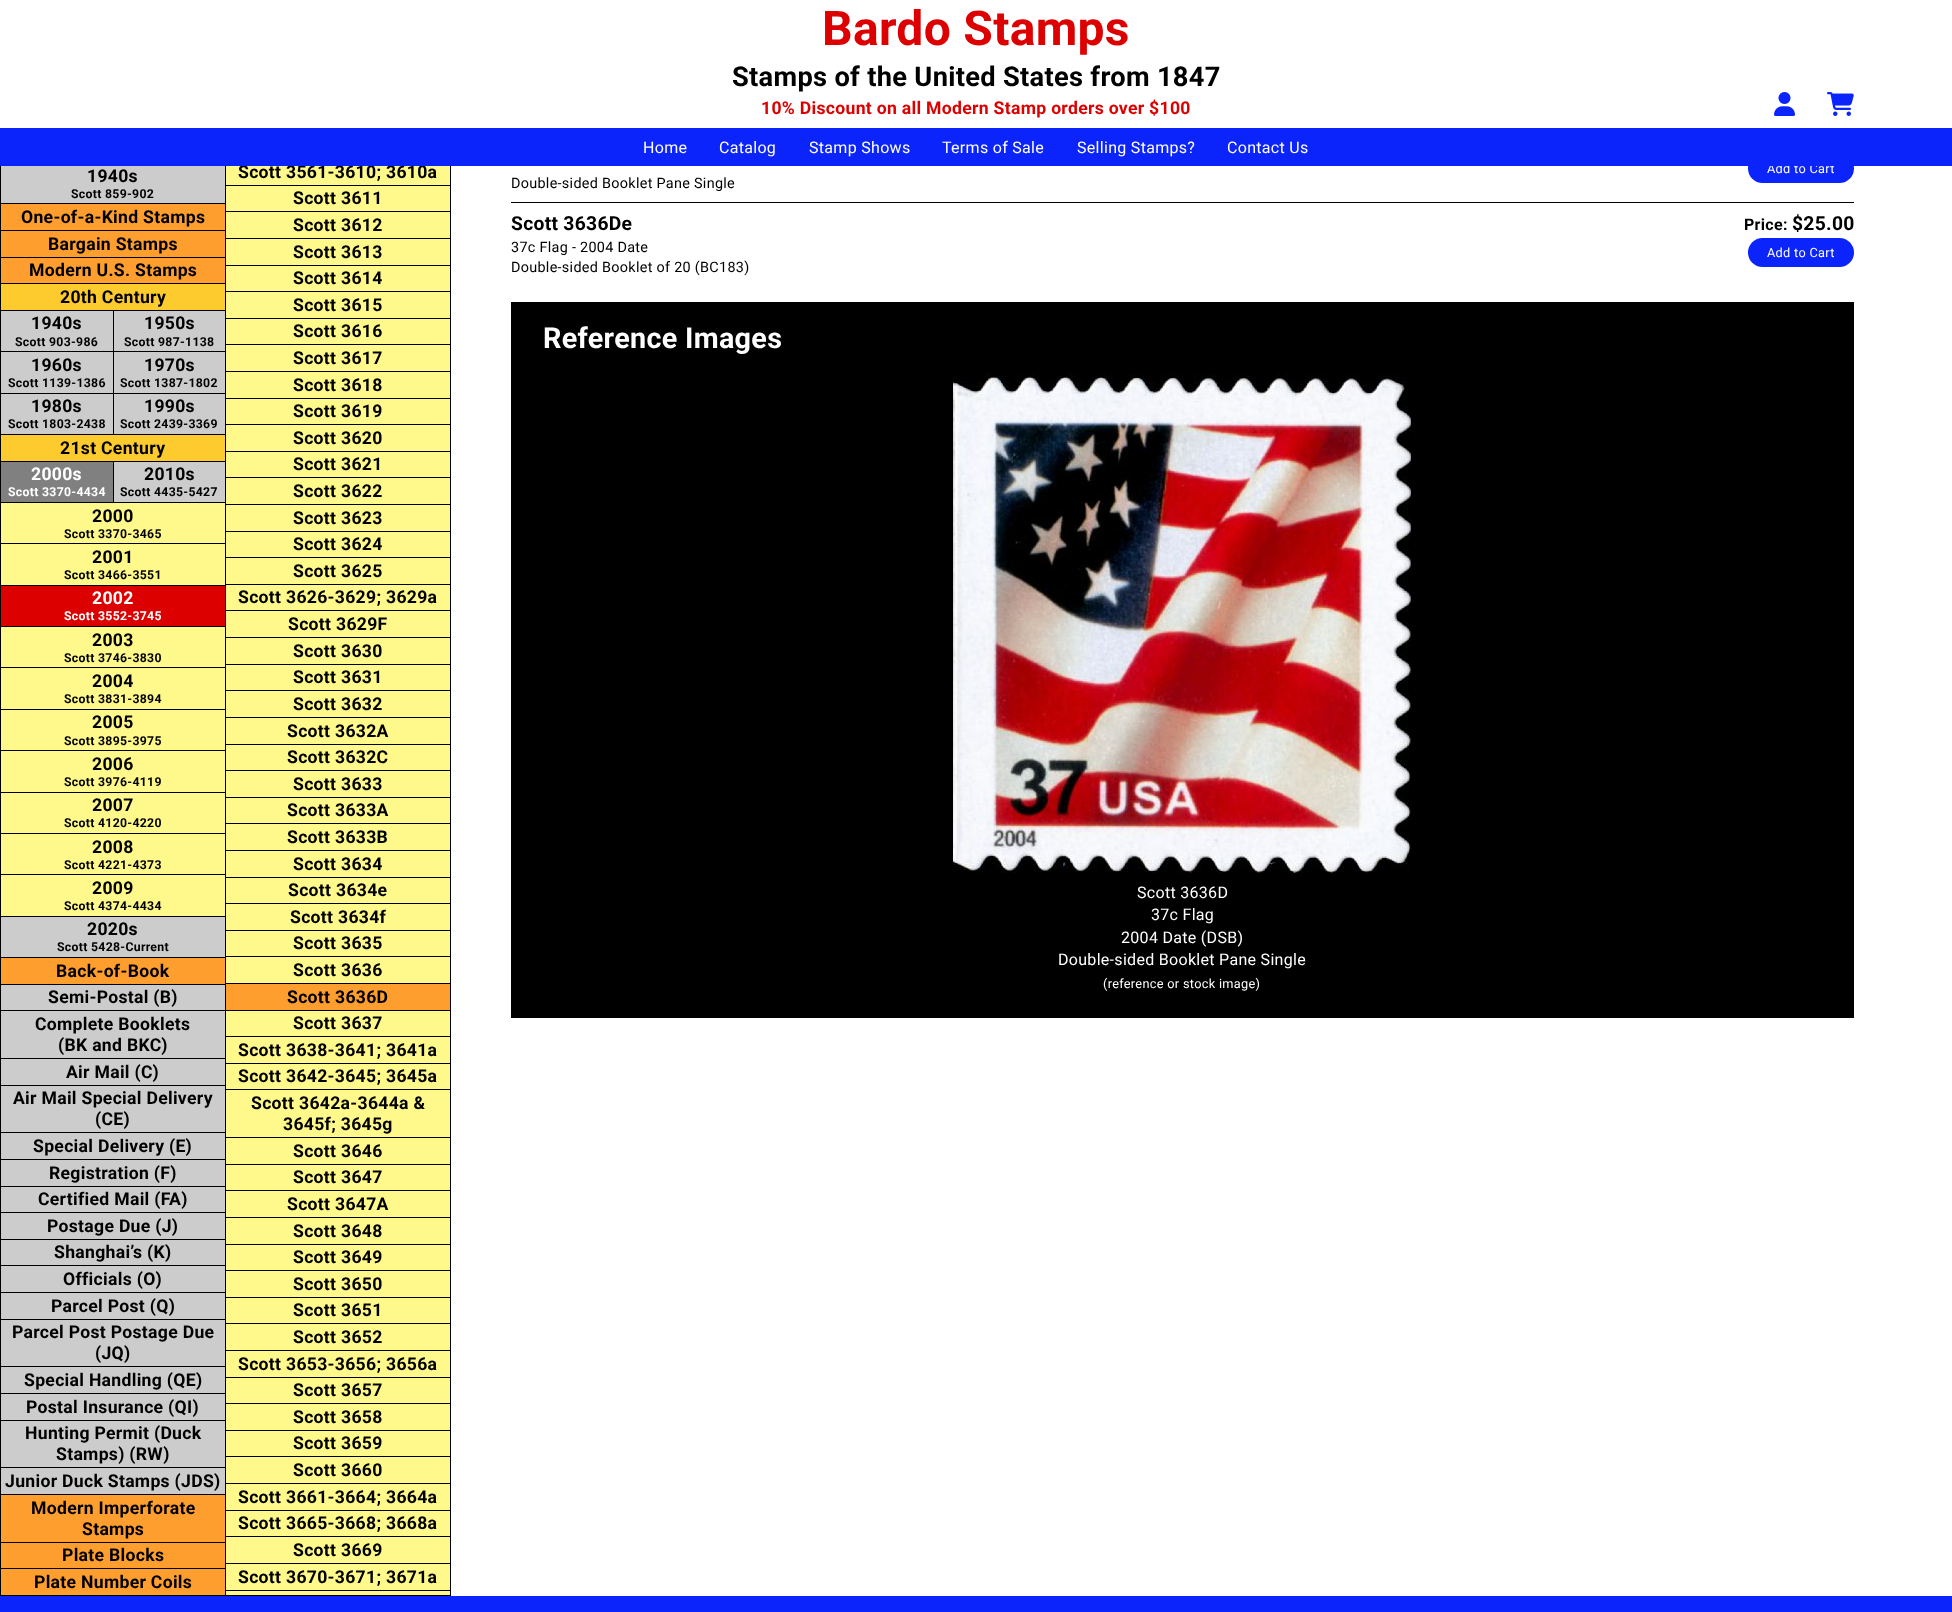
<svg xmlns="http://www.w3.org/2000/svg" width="1952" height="1612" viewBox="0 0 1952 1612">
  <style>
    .t1 { font: bold 48px Roboto; letter-spacing: 0.3px; fill: #d00; }
    .t2 { font: bold 27.25px Roboto; letter-spacing: 0.3px; fill: #000; }
    .t3 { font: bold 17.6px Roboto; letter-spacing: 0.3px; fill: #d00; }
    .t4 { font: bold 17.6px Roboto; letter-spacing: 0.3px; fill: #000; }
    .t5 { font: 12.75px Roboto; letter-spacing: 0.3px; fill: #fff; }
    .t6 { font: 16px Roboto; letter-spacing: 0.3px; fill: #fff; }
    .t7 { font: bold 12.25px Roboto; letter-spacing: 0.3px; fill: #000; }
    .t8 { font: bold 17.6px Roboto; letter-spacing: 0.3px; fill: #fff; }
    .t9 { font: bold 12.25px Roboto; letter-spacing: 0.3px; fill: #fff; }
    .t10 { font: 14.4px Roboto; letter-spacing: 0.3px; fill: #000; }
    .t11 { font: bold 19.25px Roboto; letter-spacing: 0.3px; fill: #000; }
    .t12 { font: bold 16px Roboto; letter-spacing: 0.3px; fill: #000; }
    .t13 { font: bold 28.75px Roboto; letter-spacing: 0.3px; fill: #fff; }
  </style>
  <rect width="100%" height="100%" fill="#fff"/>
  <text x="822" y="45" class="t1">Bardo Stamps</text>
  <text x="732" y="86" class="t2">Stamps of the United States from 1847</text>
  <text x="761" y="114" class="t3">10% Discount on all Modern Stamp orders over $100</text>
  <image x="1774" y="92" width="21" height="24" href="images/1.png"/>
  <image x="1827" y="92" width="27" height="24" href="images/2.png"/>
  <rect x="226" y="166" width="224" height="19" fill="#fef98a"/>
  <text x="238" y="178" class="t4">Scott 3561-3610; 3610a</text>
  <rect x="1748" y="154" width="106" height="29" rx="14.5" fill="#0b24fb"/>
  <text x="1767" y="173" class="t5">Add to Cart</text>
  <rect x="0" y="128" width="1952" height="38" fill="#0b24fb"/>
  <text x="643" y="153" class="t6">Home</text>
  <text x="719" y="153" class="t6">Catalog</text>
  <text x="809" y="153" class="t6">Stamp Shows</text>
  <text x="942" y="153" class="t6">Terms of Sale</text>
  <text x="1077" y="153" class="t6">Selling Stamps?</text>
  <text x="1227" y="153" class="t6">Contact Us</text>
  <rect x="450" y="166" width="1" height="1430" fill="#000"/>
  <rect x="225" y="1595" width="226" height="1" fill="#000"/>
  <rect x="225" y="166" width="1" height="1430" fill="#000"/>
  <rect x="0" y="1595" width="226" height="1" fill="#000"/>
  <rect x="0" y="166" width="1" height="1430" fill="#000"/>
  <rect x="1" y="166" width="224" height="37" fill="#ccc"/>
  <text x="87" y="182" class="t4">1940s</text>
  <text x="71" y="198" class="t7">Scott 859-902</text>
  <rect x="1" y="203" width="224" height="1" fill="#000"/>
  <rect x="1" y="204" width="224" height="26" fill="#fe9e2f"/>
  <text x="21" y="223" class="t4">One-of-a-Kind Stamps</text>
  <rect x="1" y="230" width="224" height="1" fill="#000"/>
  <rect x="1" y="231" width="224" height="26" fill="#fe9e2f"/>
  <text x="48" y="250" class="t4">Bargain Stamps</text>
  <rect x="1" y="257" width="224" height="1" fill="#000"/>
  <rect x="1" y="258" width="224" height="25" fill="#fe9e2f"/>
  <text x="29" y="276" class="t4">Modern U.S. Stamps</text>
  <rect x="1" y="283" width="224" height="1" fill="#000"/>
  <rect x="1" y="284" width="224" height="26" fill="#fecb2f"/>
  <text x="60" y="303" class="t4">20th Century</text>
  <rect x="1" y="310" width="224" height="1" fill="#000"/>
  <rect x="113" y="310" width="1" height="41" fill="#000"/>
  <rect x="1" y="311" width="112" height="40" fill="#ccc"/>
  <text x="31" y="329" class="t4">1940s</text>
  <text x="15" y="346" class="t7">Scott 903-986</text>
  <rect x="114" y="311" width="111" height="40" fill="#ccc"/>
  <text x="144" y="329" class="t4">1950s</text>
  <text x="124" y="346" class="t7">Scott 987-1138</text>
  <rect x="1" y="351" width="224" height="1" fill="#000"/>
  <rect x="113" y="351" width="1" height="42" fill="#000"/>
  <rect x="1" y="352" width="112" height="41" fill="#ccc"/>
  <text x="31" y="371" class="t4">1960s</text>
  <text x="8" y="387" class="t7">Scott 1139-1386</text>
  <rect x="114" y="352" width="111" height="41" fill="#ccc"/>
  <text x="144" y="371" class="t4">1970s</text>
  <text x="120" y="387" class="t7">Scott 1387-1802</text>
  <rect x="1" y="393" width="224" height="1" fill="#000"/>
  <rect x="113" y="393" width="1" height="41" fill="#000"/>
  <rect x="1" y="394" width="112" height="40" fill="#ccc"/>
  <text x="31" y="412" class="t4">1980s</text>
  <text x="8" y="428" class="t7">Scott 1803-2438</text>
  <rect x="114" y="394" width="111" height="40" fill="#ccc"/>
  <text x="144" y="412" class="t4">1990s</text>
  <text x="120" y="428" class="t7">Scott 2439-3369</text>
  <rect x="1" y="434" width="224" height="1" fill="#000"/>
  <rect x="1" y="435" width="224" height="26" fill="#fecb2f"/>
  <text x="60" y="454" class="t4">21st Century</text>
  <rect x="1" y="461" width="224" height="1" fill="#000"/>
  <rect x="113" y="461" width="1" height="41" fill="#000"/>
  <rect x="1" y="462" width="112" height="40" fill="#808080"/>
  <text x="31" y="480" class="t8">2000s</text>
  <text x="8" y="496" class="t9">Scott 3370-4434</text>
  <rect x="114" y="462" width="111" height="40" fill="#ccc"/>
  <text x="144" y="480" class="t4">2010s</text>
  <text x="120" y="496" class="t7">Scott 4435-5427</text>
  <rect x="1" y="502" width="224" height="1" fill="#000"/>
  <rect x="1" y="503" width="224" height="40" fill="#fef98a"/>
  <text x="92" y="522" class="t4">2000</text>
  <text x="64" y="538" class="t7">Scott 3370-3465</text>
  <rect x="1" y="543" width="224" height="1" fill="#000"/>
  <rect x="1" y="544" width="224" height="41" fill="#fef98a"/>
  <text x="92" y="563" class="t4">2001</text>
  <text x="64" y="579" class="t7">Scott 3466-3551</text>
  <rect x="1" y="585" width="224" height="1" fill="#000"/>
  <rect x="1" y="586" width="224" height="40" fill="#d00"/>
  <text x="92" y="604" class="t8">2002</text>
  <text x="64" y="620" class="t9">Scott 3552-3745</text>
  <rect x="1" y="626" width="224" height="1" fill="#000"/>
  <rect x="1" y="627" width="224" height="40" fill="#fef98a"/>
  <text x="92" y="646" class="t4">2003</text>
  <text x="64" y="662" class="t7">Scott 3746-3830</text>
  <rect x="1" y="667" width="224" height="1" fill="#000"/>
  <rect x="1" y="668" width="224" height="41" fill="#fef98a"/>
  <text x="92" y="687" class="t4">2004</text>
  <text x="64" y="703" class="t7">Scott 3831-3894</text>
  <rect x="1" y="709" width="224" height="1" fill="#000"/>
  <rect x="1" y="710" width="224" height="40" fill="#fef98a"/>
  <text x="92" y="728" class="t4">2005</text>
  <text x="64" y="745" class="t7">Scott 3895-3975</text>
  <rect x="1" y="750" width="224" height="1" fill="#000"/>
  <rect x="1" y="751" width="224" height="41" fill="#fef98a"/>
  <text x="92" y="770" class="t4">2006</text>
  <text x="64" y="786" class="t7">Scott 3976-4119</text>
  <rect x="1" y="792" width="224" height="1" fill="#000"/>
  <rect x="1" y="793" width="224" height="40" fill="#fef98a"/>
  <text x="92" y="811" class="t4">2007</text>
  <text x="64" y="827" class="t7">Scott 4120-4220</text>
  <rect x="1" y="833" width="224" height="1" fill="#000"/>
  <rect x="1" y="834" width="224" height="40" fill="#fef98a"/>
  <text x="92" y="853" class="t4">2008</text>
  <text x="64" y="869" class="t7">Scott 4221-4373</text>
  <rect x="1" y="874" width="224" height="1" fill="#000"/>
  <rect x="1" y="875" width="224" height="41" fill="#fef98a"/>
  <text x="92" y="894" class="t4">2009</text>
  <text x="64" y="910" class="t7">Scott 4374-4434</text>
  <rect x="1" y="916" width="224" height="1" fill="#000"/>
  <rect x="1" y="917" width="224" height="40" fill="#ccc"/>
  <text x="87" y="935" class="t4">2020s</text>
  <text x="57" y="951" class="t7">Scott 5428-Current</text>
  <rect x="1" y="957" width="224" height="1" fill="#000"/>
  <rect x="1" y="958" width="224" height="26" fill="#fe9e2f"/>
  <text x="56" y="977" class="t4">Back-of-Book</text>
  <rect x="1" y="984" width="224" height="1" fill="#000"/>
  <rect x="1" y="985" width="224" height="25" fill="#ccc"/>
  <text x="48" y="1003" class="t4">Semi-Postal (B)</text>
  <rect x="1" y="1010" width="224" height="1" fill="#000"/>
  <rect x="1" y="1011" width="224" height="47" fill="#ccc"/>
  <text x="35" y="1030" class="t4">Complete Booklets</text>
  <text x="58" y="1051" class="t4">(BK and BKC)</text>
  <rect x="1" y="1058" width="224" height="1" fill="#000"/>
  <rect x="1" y="1059" width="224" height="26" fill="#ccc"/>
  <text x="66" y="1078" class="t4">Air Mail (C)</text>
  <rect x="1" y="1085" width="224" height="1" fill="#000"/>
  <rect x="1" y="1086" width="224" height="46" fill="#ccc"/>
  <text x="13" y="1104" class="t4">Air Mail Special Delivery</text>
  <text x="95" y="1125" class="t4">(CE)</text>
  <rect x="1" y="1132" width="224" height="1" fill="#000"/>
  <rect x="1" y="1133" width="224" height="26" fill="#ccc"/>
  <text x="33" y="1152" class="t4">Special Delivery (E)</text>
  <rect x="1" y="1159" width="224" height="1" fill="#000"/>
  <rect x="1" y="1160" width="224" height="26" fill="#ccc"/>
  <text x="49" y="1179" class="t4">Registration (F)</text>
  <rect x="1" y="1186" width="224" height="1" fill="#000"/>
  <rect x="1" y="1187" width="224" height="25" fill="#ccc"/>
  <text x="38" y="1205" class="t4">Certified Mail (FA)</text>
  <rect x="1" y="1212" width="224" height="1" fill="#000"/>
  <rect x="1" y="1213" width="224" height="26" fill="#ccc"/>
  <text x="47" y="1232" class="t4">Postage Due (J)</text>
  <rect x="1" y="1239" width="224" height="1" fill="#000"/>
  <rect x="1" y="1240" width="224" height="25" fill="#ccc"/>
  <text x="54" y="1258" class="t4">Shanghai’s (K)</text>
  <rect x="1" y="1265" width="224" height="1" fill="#000"/>
  <rect x="1" y="1266" width="224" height="26" fill="#ccc"/>
  <text x="63" y="1285" class="t4">Officials (O)</text>
  <rect x="1" y="1292" width="224" height="1" fill="#000"/>
  <rect x="1" y="1293" width="224" height="26" fill="#ccc"/>
  <text x="51" y="1312" class="t4">Parcel Post (Q)</text>
  <rect x="1" y="1319" width="224" height="1" fill="#000"/>
  <rect x="1" y="1320" width="224" height="46" fill="#ccc"/>
  <text x="12" y="1338" class="t4">Parcel Post Postage Due</text>
  <text x="95" y="1359" class="t4">(JQ)</text>
  <rect x="1" y="1366" width="224" height="1" fill="#000"/>
  <rect x="1" y="1367" width="224" height="26" fill="#ccc"/>
  <text x="24" y="1386" class="t4">Special Handling (QE)</text>
  <rect x="1" y="1393" width="224" height="1" fill="#000"/>
  <rect x="1" y="1394" width="224" height="26" fill="#ccc"/>
  <text x="26" y="1413" class="t4">Postal Insurance (QI)</text>
  <rect x="1" y="1420" width="224" height="1" fill="#000"/>
  <rect x="1" y="1421" width="224" height="46" fill="#ccc"/>
  <text x="25" y="1439" class="t4">Hunting Permit (Duck</text>
  <text x="56" y="1460" class="t4">Stamps) (RW)</text>
  <rect x="1" y="1467" width="224" height="1" fill="#000"/>
  <rect x="1" y="1468" width="224" height="26" fill="#ccc"/>
  <text x="5" y="1487" class="t4">Junior Duck Stamps (JDS)</text>
  <rect x="1" y="1494" width="224" height="1" fill="#000"/>
  <rect x="1" y="1495" width="224" height="47" fill="#fe9e2f"/>
  <text x="31" y="1514" class="t4">Modern Imperforate</text>
  <text x="82" y="1535" class="t4">Stamps</text>
  <rect x="1" y="1542" width="224" height="1" fill="#000"/>
  <rect x="1" y="1543" width="224" height="25" fill="#fe9e2f"/>
  <text x="62" y="1561" class="t4">Plate Blocks</text>
  <rect x="1" y="1568" width="224" height="1" fill="#000"/>
  <rect x="1" y="1569" width="224" height="26" fill="#fe9e2f"/>
  <text x="34" y="1588" class="t4">Plate Number Coils</text>
  <rect x="226" y="185" width="224" height="1" fill="#000"/>
  <rect x="226" y="186" width="224" height="25" fill="#fef98a"/>
  <text x="293" y="204" class="t4">Scott 3611</text>
  <rect x="226" y="211" width="224" height="1" fill="#000"/>
  <rect x="226" y="212" width="224" height="26" fill="#fef98a"/>
  <text x="293" y="231" class="t4">Scott 3612</text>
  <rect x="226" y="238" width="224" height="1" fill="#000"/>
  <rect x="226" y="239" width="224" height="26" fill="#fef98a"/>
  <text x="293" y="258" class="t4">Scott 3613</text>
  <rect x="226" y="265" width="224" height="1" fill="#000"/>
  <rect x="226" y="266" width="224" height="25" fill="#fef98a"/>
  <text x="293" y="284" class="t4">Scott 3614</text>
  <rect x="226" y="291" width="224" height="1" fill="#000"/>
  <rect x="226" y="292" width="224" height="26" fill="#fef98a"/>
  <text x="293" y="311" class="t4">Scott 3615</text>
  <rect x="226" y="318" width="224" height="1" fill="#000"/>
  <rect x="226" y="319" width="224" height="25" fill="#fef98a"/>
  <text x="293" y="337" class="t4">Scott 3616</text>
  <rect x="226" y="344" width="224" height="1" fill="#000"/>
  <rect x="226" y="345" width="224" height="26" fill="#fef98a"/>
  <text x="293" y="364" class="t4">Scott 3617</text>
  <rect x="226" y="371" width="224" height="1" fill="#000"/>
  <rect x="226" y="372" width="224" height="26" fill="#fef98a"/>
  <text x="293" y="391" class="t4">Scott 3618</text>
  <rect x="226" y="398" width="224" height="1" fill="#000"/>
  <rect x="226" y="399" width="224" height="25" fill="#fef98a"/>
  <text x="293" y="417" class="t4">Scott 3619</text>
  <rect x="226" y="424" width="224" height="1" fill="#000"/>
  <rect x="226" y="425" width="224" height="26" fill="#fef98a"/>
  <text x="293" y="444" class="t4">Scott 3620</text>
  <rect x="226" y="451" width="224" height="1" fill="#000"/>
  <rect x="226" y="452" width="224" height="25" fill="#fef98a"/>
  <text x="293" y="470" class="t4">Scott 3621</text>
  <rect x="226" y="477" width="224" height="1" fill="#000"/>
  <rect x="226" y="478" width="224" height="26" fill="#fef98a"/>
  <text x="293" y="497" class="t4">Scott 3622</text>
  <rect x="226" y="504" width="224" height="1" fill="#000"/>
  <rect x="226" y="505" width="224" height="26" fill="#fef98a"/>
  <text x="293" y="524" class="t4">Scott 3623</text>
  <rect x="226" y="531" width="224" height="1" fill="#000"/>
  <rect x="226" y="532" width="224" height="25" fill="#fef98a"/>
  <text x="293" y="550" class="t4">Scott 3624</text>
  <rect x="226" y="557" width="224" height="1" fill="#000"/>
  <rect x="226" y="558" width="224" height="26" fill="#fef98a"/>
  <text x="293" y="577" class="t4">Scott 3625</text>
  <rect x="226" y="584" width="224" height="1" fill="#000"/>
  <rect x="226" y="585" width="224" height="25" fill="#fef98a"/>
  <text x="238" y="603" class="t4">Scott 3626-3629; 3629a</text>
  <rect x="226" y="610" width="224" height="1" fill="#000"/>
  <rect x="226" y="611" width="224" height="26" fill="#fef98a"/>
  <text x="288" y="630" class="t4">Scott 3629F</text>
  <rect x="226" y="637" width="224" height="1" fill="#000"/>
  <rect x="226" y="638" width="224" height="26" fill="#fef98a"/>
  <text x="293" y="657" class="t4">Scott 3630</text>
  <rect x="226" y="664" width="224" height="1" fill="#000"/>
  <rect x="226" y="665" width="224" height="25" fill="#fef98a"/>
  <text x="293" y="683" class="t4">Scott 3631</text>
  <rect x="226" y="690" width="224" height="1" fill="#000"/>
  <rect x="226" y="691" width="224" height="26" fill="#fef98a"/>
  <text x="293" y="710" class="t4">Scott 3632</text>
  <rect x="226" y="717" width="224" height="1" fill="#000"/>
  <rect x="226" y="718" width="224" height="26" fill="#fef98a"/>
  <text x="287" y="737" class="t4">Scott 3632A</text>
  <rect x="226" y="744" width="224" height="1" fill="#000"/>
  <rect x="226" y="745" width="224" height="25" fill="#fef98a"/>
  <text x="287" y="763" class="t4">Scott 3632C</text>
  <rect x="226" y="770" width="224" height="1" fill="#000"/>
  <rect x="226" y="771" width="224" height="26" fill="#fef98a"/>
  <text x="293" y="790" class="t4">Scott 3633</text>
  <rect x="226" y="797" width="224" height="1" fill="#000"/>
  <rect x="226" y="798" width="224" height="25" fill="#fef98a"/>
  <text x="287" y="816" class="t4">Scott 3633A</text>
  <rect x="226" y="823" width="224" height="1" fill="#000"/>
  <rect x="226" y="824" width="224" height="26" fill="#fef98a"/>
  <text x="287" y="843" class="t4">Scott 3633B</text>
  <rect x="226" y="850" width="224" height="1" fill="#000"/>
  <rect x="226" y="851" width="224" height="26" fill="#fef98a"/>
  <text x="293" y="870" class="t4">Scott 3634</text>
  <rect x="226" y="877" width="224" height="1" fill="#000"/>
  <rect x="226" y="878" width="224" height="25" fill="#fef98a"/>
  <text x="288" y="896" class="t4">Scott 3634e</text>
  <rect x="226" y="903" width="224" height="1" fill="#000"/>
  <rect x="226" y="904" width="224" height="26" fill="#fef98a"/>
  <text x="290" y="923" class="t4">Scott 3634f</text>
  <rect x="226" y="930" width="224" height="1" fill="#000"/>
  <rect x="226" y="931" width="224" height="25" fill="#fef98a"/>
  <text x="293" y="949" class="t4">Scott 3635</text>
  <rect x="226" y="956" width="224" height="1" fill="#000"/>
  <rect x="226" y="957" width="224" height="26" fill="#fef98a"/>
  <text x="293" y="976" class="t4">Scott 3636</text>
  <rect x="226" y="983" width="224" height="1" fill="#000"/>
  <rect x="226" y="984" width="224" height="26" fill="#fe9e2f"/>
  <text x="287" y="1003" class="t4">Scott 3636D</text>
  <rect x="226" y="1010" width="224" height="1" fill="#000"/>
  <rect x="226" y="1011" width="224" height="25" fill="#fef98a"/>
  <text x="293" y="1029" class="t4">Scott 3637</text>
  <rect x="226" y="1036" width="224" height="1" fill="#000"/>
  <rect x="226" y="1037" width="224" height="26" fill="#fef98a"/>
  <text x="238" y="1056" class="t4">Scott 3638-3641; 3641a</text>
  <rect x="226" y="1063" width="224" height="1" fill="#000"/>
  <rect x="226" y="1064" width="224" height="25" fill="#fef98a"/>
  <text x="238" y="1082" class="t4">Scott 3642-3645; 3645a</text>
  <rect x="226" y="1089" width="224" height="1" fill="#000"/>
  <rect x="226" y="1090" width="224" height="47" fill="#fef98a"/>
  <text x="251" y="1109" class="t4">Scott 3642a-3644a &amp;</text>
  <text x="283" y="1130" class="t4">3645f; 3645g</text>
  <rect x="226" y="1137" width="224" height="1" fill="#000"/>
  <rect x="226" y="1138" width="224" height="26" fill="#fef98a"/>
  <text x="293" y="1157" class="t4">Scott 3646</text>
  <rect x="226" y="1164" width="224" height="1" fill="#000"/>
  <rect x="226" y="1165" width="224" height="25" fill="#fef98a"/>
  <text x="293" y="1183" class="t4">Scott 3647</text>
  <rect x="226" y="1190" width="224" height="1" fill="#000"/>
  <rect x="226" y="1191" width="224" height="26" fill="#fef98a"/>
  <text x="287" y="1210" class="t4">Scott 3647A</text>
  <rect x="226" y="1217" width="224" height="1" fill="#000"/>
  <rect x="226" y="1218" width="224" height="26" fill="#fef98a"/>
  <text x="293" y="1237" class="t4">Scott 3648</text>
  <rect x="226" y="1244" width="224" height="1" fill="#000"/>
  <rect x="226" y="1245" width="224" height="25" fill="#fef98a"/>
  <text x="293" y="1263" class="t4">Scott 3649</text>
  <rect x="226" y="1270" width="224" height="1" fill="#000"/>
  <rect x="226" y="1271" width="224" height="26" fill="#fef98a"/>
  <text x="293" y="1290" class="t4">Scott 3650</text>
  <rect x="226" y="1297" width="224" height="1" fill="#000"/>
  <rect x="226" y="1298" width="224" height="25" fill="#fef98a"/>
  <text x="293" y="1316" class="t4">Scott 3651</text>
  <rect x="226" y="1323" width="224" height="1" fill="#000"/>
  <rect x="226" y="1324" width="224" height="26" fill="#fef98a"/>
  <text x="293" y="1343" class="t4">Scott 3652</text>
  <rect x="226" y="1350" width="224" height="1" fill="#000"/>
  <rect x="226" y="1351" width="224" height="26" fill="#fef98a"/>
  <text x="238" y="1370" class="t4">Scott 3653-3656; 3656a</text>
  <rect x="226" y="1377" width="224" height="1" fill="#000"/>
  <rect x="226" y="1378" width="224" height="25" fill="#fef98a"/>
  <text x="293" y="1396" class="t4">Scott 3657</text>
  <rect x="226" y="1403" width="224" height="1" fill="#000"/>
  <rect x="226" y="1404" width="224" height="26" fill="#fef98a"/>
  <text x="293" y="1423" class="t4">Scott 3658</text>
  <rect x="226" y="1430" width="224" height="1" fill="#000"/>
  <rect x="226" y="1431" width="224" height="25" fill="#fef98a"/>
  <text x="293" y="1449" class="t4">Scott 3659</text>
  <rect x="226" y="1456" width="224" height="1" fill="#000"/>
  <rect x="226" y="1457" width="224" height="26" fill="#fef98a"/>
  <text x="293" y="1476" class="t4">Scott 3660</text>
  <rect x="226" y="1483" width="224" height="1" fill="#000"/>
  <rect x="226" y="1484" width="224" height="26" fill="#fef98a"/>
  <text x="238" y="1503" class="t4">Scott 3661-3664; 3664a</text>
  <rect x="226" y="1510" width="224" height="1" fill="#000"/>
  <rect x="226" y="1511" width="224" height="25" fill="#fef98a"/>
  <text x="238" y="1529" class="t4">Scott 3665-3668; 3668a</text>
  <rect x="226" y="1536" width="224" height="1" fill="#000"/>
  <rect x="226" y="1537" width="224" height="26" fill="#fef98a"/>
  <text x="293" y="1556" class="t4">Scott 3669</text>
  <rect x="226" y="1563" width="224" height="1" fill="#000"/>
  <rect x="226" y="1564" width="224" height="26" fill="#fef98a"/>
  <text x="238" y="1583" class="t4">Scott 3670-3671; 3671a</text>
  <rect x="226" y="1590" width="224" height="1" fill="#000"/>
  <rect x="226" y="1591" width="224" height="4" fill="#fef98a"/>
  <rect x="511" y="202" width="1343" height="1" fill="#000"/>
  <text x="511" y="188" class="t10">Double-sided Booklet Pane Single</text>
  <text x="511" y="230" class="t11">Scott 3636De</text>
  <text x="1744" y="230" class="t12">Price:</text>
  <text x="1792" y="230" class="t11">$25.00</text>
  <rect x="1748" y="238" width="106" height="29" rx="14.5" fill="#0b24fb"/>
  <text x="1767" y="257" class="t5">Add to Cart</text>
  <text x="511" y="252" class="t10">37c Flag - 2004 Date</text>
  <text x="511" y="272" class="t10">Double-sided Booklet of 20 (BC183)</text>
  <rect x="511" y="302" width="1343" height="716" fill="#000"/>
  <text x="543" y="348" class="t13">Reference Images</text>
  <image x="953" y="373" width="458" height="500" href="images/3.png"/>
  <text x="1137" y="898" class="t6">Scott 3636D</text>
  <text x="1151" y="920" class="t6">37c Flag</text>
  <text x="1121" y="943" class="t6">2004 Date (DSB)</text>
  <text x="1058" y="965" class="t6">Double-sided Booklet Pane Single</text>
  <text x="1103" y="988" class="t5">(reference or stock image)</text>
  <rect x="0" y="1596" width="1952" height="16" fill="#0b24fb"/>
</svg>
